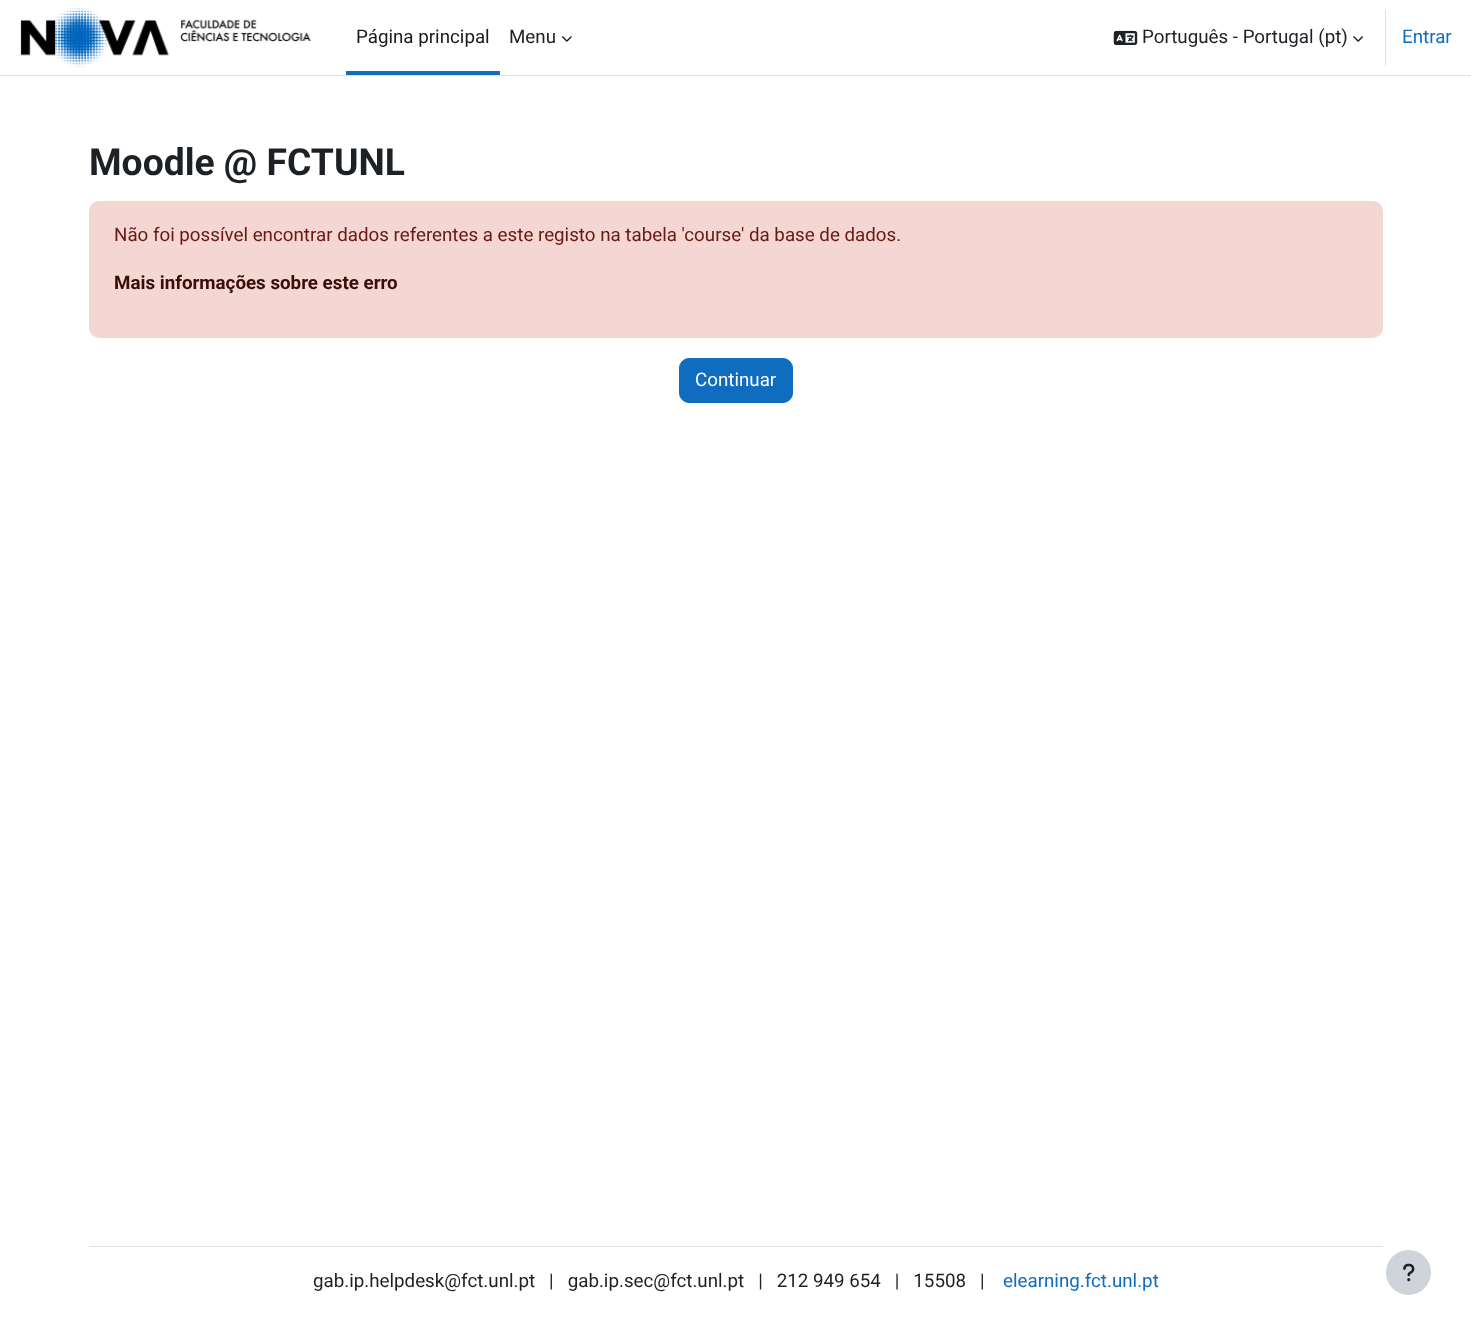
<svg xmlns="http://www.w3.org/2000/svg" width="1471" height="1335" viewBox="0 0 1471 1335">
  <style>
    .t1 { font: 18.75px Roboto; fill: #1a1a1a; }
    .t2 { font: 18.75px Roboto; fill: #1d2125; }
    .t3 { font: 18.75px Roboto; fill: #0f6cbf; }
    .t4 { font: bold 37.25px Roboto; fill: #1d2125; }
    .t5 { font: 18.75px Roboto; fill: #691911; }
    .t6 { font: bold 18.75px Roboto; fill: #390e09; }
    .t7 { font: 18.75px Roboto; fill: #fff; }
  </style>
  <rect width="100%" height="100%" fill="#fff"/>
  <rect x="0" y="75" width="1471" height="1" fill="#dee2e6"/>
  <image x="20" y="8" width="292" height="60" href="images/1.png"/>
  <rect x="346" y="71" width="154" height="4" fill="#0f6cbf"/>
  <text x="356" y="43" class="t1">Página principal</text>
  <text x="509" y="43" class="t2">Menu</text>
  <image x="562" y="36" width="10" height="6" href="images/2.png"/>
  <image x="1113" y="30" width="25" height="15" href="images/3.png"/>
  <text x="1142" y="43" class="t2">Português - Portugal (pt)</text>
  <image x="1353" y="36" width="10" height="6" href="images/4.png"/>
  <rect x="1385" y="10" width="1" height="56" fill="#dee2e6"/>
  <text x="1402" y="43" class="t3">Entrar</text>
  <text x="89" y="175" class="t4">Moodle @ FCTUNL</text>
  <rect x="89" y="201" width="1294" height="137" rx="10" fill="#f4d6d2"/>
  <text x="114" y="241" class="t5">Não foi possível encontrar dados referentes a este registo na tabela 'course' da base de dados.</text>
  <text x="114" y="289" class="t6">Mais informações sobre este erro</text>
  <rect x="679.5" y="358.5" width="113" height="44" rx="9.5" fill="#0f6cbf" stroke="#0f6cbf"/>
  <text x="695" y="386" class="t7">Continuar</text>
  <rect x="89" y="1246" width="1294" height="1" fill="#dee2e6"/>
  <text x="313" y="1287" class="t2" xml:space="preserve">gab.ip.helpdesk@fct.unl.pt   |   gab.ip.sec@fct.unl.pt   |   212 949 654   |   15508   |</text>
  <text x="1003" y="1287" class="t3">elearning.fct.unl.pt</text>
  <circle cx="1408.5" cy="1272.5" r="22.5" fill="#ced4da"/>
  <image x="1403" y="1263" width="12" height="19" href="images/5.png"/>
</svg>
